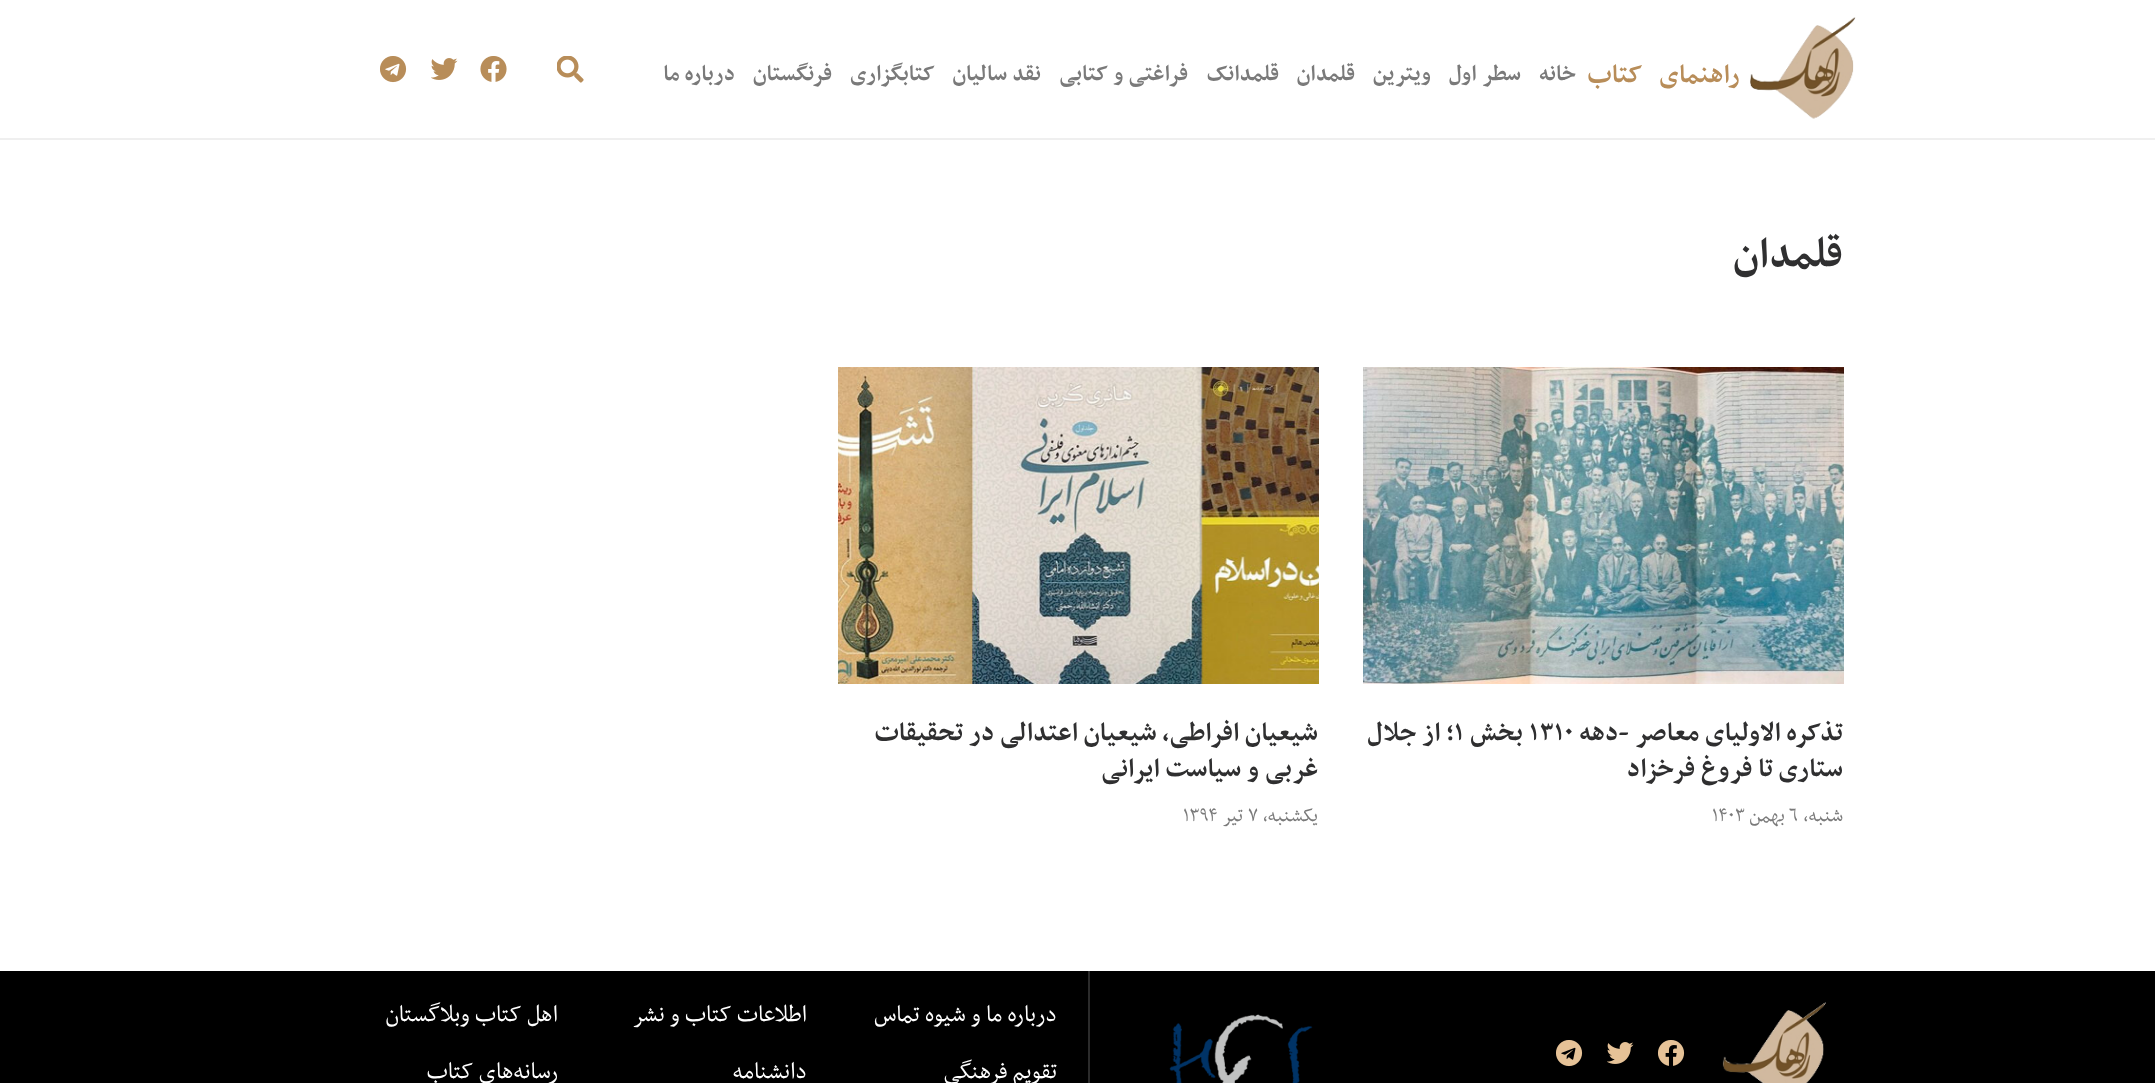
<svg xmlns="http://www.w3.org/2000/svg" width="2155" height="1083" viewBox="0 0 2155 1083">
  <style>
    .t1 { font: bold 30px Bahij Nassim; letter-spacing: -0.9px; direction: rtl; fill: #b88d59; }
    .t2 { font: bold 25.5px Bahij Nassim; direction: rtl; fill: #7a7a7a; }
    .t3 { font: bold 48px Bahij Nassim; direction: rtl; fill: #2f2f30; }
    .t4 { font: bold 30px Bahij Nassim; direction: rtl; fill: #2f2f30; }
    .t5 { font: bold 30px Bahij Nassim; fill: #2f2f30; }
    .t6 { font: 22.5px Bahij Nassim; direction: rtl; fill: #7a7a7a; }
    .t7 { font: 22.5px Bahij Nassim; fill: #7a7a7a; }
    .t8 { font: 27px Bahij Nassim; direction: rtl; fill: #fff; }
  </style>
  <rect width="100%" height="100%" fill="#fff"/>
  <rect x="0" y="138" width="2155" height="2" fill="#efefef"/>
  <image x="1750" y="17" width="106" height="102" href="images/1.png"/>
  <text x="1740" y="82" word-spacing="11" class="t1">راهنمای کتاب</text>
  <text x="1576" y="80" class="t2">خانه</text>
  <text x="1521" y="80" class="t2">سطر اول</text>
  <text x="1431" y="80" class="t2">ویترین</text>
  <text x="1355" y="80" class="t2">قلمدان</text>
  <text x="1279" y="80" class="t2">قلمدانک</text>
  <text x="1188" y="80" class="t2">فراغتی و کتابی</text>
  <text x="1041" y="80" class="t2">نقد سالیان</text>
  <text x="935" y="80" class="t2">کتابگزاری</text>
  <text x="832" y="80" class="t2">فرنگستان</text>
  <text x="735" y="80" class="t2">درباره ما</text>
  <image x="557" y="56" width="27" height="27" href="images/2.png"/>
  <image x="480" y="56" width="27" height="26" href="images/3.png"/>
  <image x="431" y="58" width="27" height="22" href="images/4.png"/>
  <image x="380" y="56" width="27" height="27" href="images/5.png"/>
  <text x="1843" y="266" class="t3">قلمدان</text>
  <image x="1363" y="367" width="481" height="317" href="images/6.png"/>
  <text x="1843" y="740" class="t4">تذکره الاولیای معاصر -دهه</text>
  <text x="1529" y="740" class="t5">۱۳۱۰</text>
  <text x="1523" y="740" class="t4">بخش</text>
  <text x="1454" y="740" class="t5">۱</text>
  <text x="1454" y="740" class="t4">؛ از جلال</text>
  <text x="1843" y="776" class="t4">ستاری تا فروغ فرخزاد</text>
  <text x="1843" y="821" class="t6">شنبه،</text>
  <text x="1789" y="821" class="t7">۶</text>
  <text x="1785" y="821" class="t6">بهمن</text>
  <text x="1712" y="821" class="t7">۱۴۰۳</text>
  <image x="838" y="367" width="481" height="317" href="images/7.png"/>
  <text x="1318" y="740" class="t4">شیعیان افراطی، شیعیان اعتدالی در تحقیقات</text>
  <text x="1318" y="776" class="t4">غربی و سیاست ایرانی</text>
  <text x="1318" y="821" class="t6">یکشنبه،</text>
  <text x="1248" y="821" class="t7">۷</text>
  <text x="1243" y="821" class="t6">تیر</text>
  <text x="1183" y="821" class="t7">۱۳۹۴</text>
  <rect x="0" y="971" width="2155" height="112" fill="#000"/>
  <image x="1722" y="1002" width="104" height="81" href="images/8.png"/>
  <image x="1658" y="1040" width="27" height="26" href="images/9.png"/>
  <image x="1607" y="1042" width="27" height="22" href="images/10.png"/>
  <image x="1556" y="1040" width="27" height="27" href="images/11.png"/>
  <image x="1169" y="1014" width="144" height="69" href="images/12.png"/>
  <rect x="1088" y="971" width="2" height="112" fill="#2b2b2b"/>
  <text x="1057" y="1021" class="t8">درباره ما و شیوه تماس</text>
  <text x="1057" y="1078" class="t8">تقویم فرهنگی</text>
  <text x="807" y="1021" class="t8">اطلاعات کتاب و نشر</text>
  <text x="807" y="1078" class="t8">دانشنامه</text>
  <text x="558" y="1021" class="t8">اهل کتاب وبلاگستان</text>
  <text x="558" y="1078" class="t8">رسانه‌های کتاب</text>
</svg>
